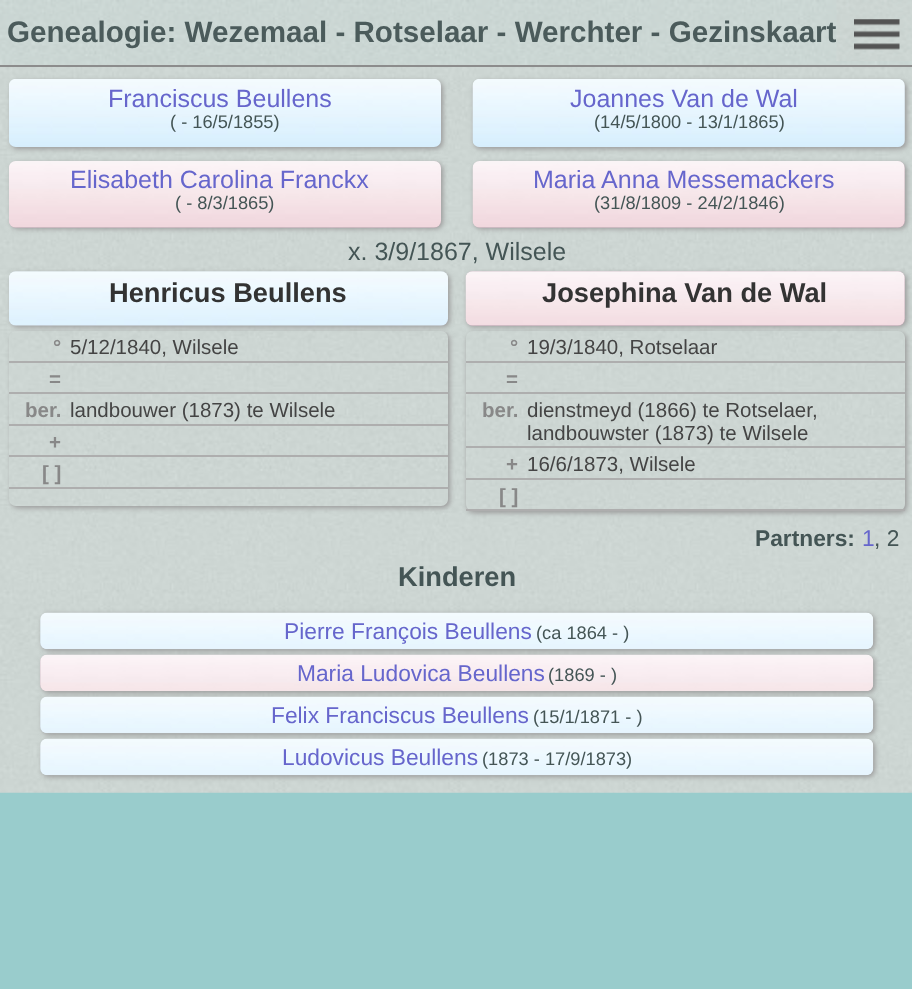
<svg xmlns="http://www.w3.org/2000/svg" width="912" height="989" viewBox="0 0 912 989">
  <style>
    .t1 { font: bold 29.6px Liberation Sans; fill: #4b5b5b; }
    .t2 { font: 25px Liberation Sans; fill: #66c; }
    .t3 { font: 18.25px Liberation Sans; fill: #455; }
    .t4 { font: 25px Liberation Sans; fill: #455; }
    .t5 { font: bold 27.25px Liberation Sans; fill: #333; }
    .t6 { font: bold 20.5px Liberation Sans; fill: #888; }
    .t7 { font: 20.5px Liberation Sans; fill: #444; }
    .t8 { font: bold 22.75px Liberation Sans; fill: #455; }
    .t9 { font: 22.75px Liberation Sans; fill: #66c; }
    .t10 { font: 22.75px Liberation Sans; fill: #455; }
    .t11 { font: bold 27.25px Liberation Sans; fill: #455; }
  </style>
  <defs>
    <clipPath id="clip1"><path d="M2 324H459V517H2ZM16 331H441C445 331 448 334 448 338V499C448 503 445 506 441 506H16C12 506 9 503 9 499V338C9 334 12 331 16 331Z" clip-rule="evenodd"/></clipPath>
    <clipPath id="clip2"><path d="M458 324H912V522H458ZM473 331H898C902 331 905 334 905 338V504C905 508 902 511 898 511H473C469 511 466 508 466 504V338C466 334 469 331 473 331Z" clip-rule="evenodd"/></clipPath>
  </defs>
  <rect width="100%" height="100%" fill="#9cc"/>
  <image x="0" y="64" width="912" height="729" href="images/4.png"/>
  <image x="0" y="0" width="912" height="66" href="images/1.png"/>
  <rect x="0" y="65" width="912" height="2" fill="#888888f2"/>
  <text x="7" y="42" class="t1">Genealogie: Wezemaal - Rotselaar - Werchter - Gezinskaart</text>
  <image x="836" y="0" width="76" height="61" href="images/2.png"/>
  <image x="854" y="19" width="46" height="31" href="images/3.png"/>
  <rect x="11" y="81" width="432" height="68" rx="7" fill="#9b9b9b" filter="blur(2.5px)"/>
  <image x="9" y="79" width="432" height="68" href="images/5.png"/>
  <text x="108" y="107" class="t2">Franciscus Beullens</text>
  <text x="170" y="128" class="t3">( - 16/5/1855)</text>
  <rect x="474" y="81" width="433" height="68" rx="7" fill="#9b9b9b" filter="blur(2.5px)"/>
  <rect x="473" y="79" width="432" height="68" rx="7" fill="#e0effe82"/>
  <image x="472" y="79" width="433" height="68" href="images/6.png"/>
  <text x="570" y="107" class="t2">Joannes Van de Wal</text>
  <text x="594" y="128" class="t3">(14/5/1800 - 13/1/1865)</text>
  <rect x="11" y="163" width="432" height="66" rx="7" fill="#9b9b9b" filter="blur(2.5px)"/>
  <rect x="9" y="161" width="432" height="67" rx="7" fill="#fcb7d647"/>
  <image x="9" y="161" width="432" height="67" href="images/7.png"/>
  <text x="70" y="188" class="t2">Elisabeth Carolina Franckx</text>
  <text x="175" y="209" class="t3">( - 8/3/1865)</text>
  <rect x="474" y="163" width="433" height="66" rx="7" fill="#9b9b9b" filter="blur(2.5px)"/>
  <rect x="473" y="161" width="432" height="67" rx="7" fill="#fcb7d647"/>
  <image x="472" y="161" width="433" height="67" href="images/8.png"/>
  <text x="533" y="188" class="t2">Maria Anna Messemackers</text>
  <text x="594" y="209" class="t3">(31/8/1809 - 24/2/1846)</text>
  <text x="348" y="260" class="t4">x. 3/9/1867, Wilsele</text>
  <rect x="11" y="273" width="439" height="54" rx="7" fill="#9b9b9b" filter="blur(2.5px)"/>
  <rect x="9" y="271" width="439" height="55" rx="7" fill="#e0effe4d"/>
  <image x="9" y="271" width="439" height="55" href="images/9.png"/>
  <text x="109" y="302" class="t5">Henricus Beullens</text>
  <rect x="467" y="273" width="440" height="54" rx="7" fill="#9b9b9b" filter="blur(2.5px)"/>
  <rect x="466" y="271" width="439" height="55" rx="7" fill="#fcb7d64d"/>
  <image x="465" y="271" width="440" height="55" href="images/10.png"/>
  <text x="542" y="302" class="t5">Josephina Van de Wal</text>
  <g clip-path="url(#clip1)">
    <rect x="11" y="333" width="439" height="175" rx="7" fill="#9b9b9b" filter="blur(2.5px)"/>
  </g>
  <rect x="9" y="361" width="439" height="2" fill="#aeaeae"/>
  <text x="53" y="354" class="t6">°</text>
  <text x="70" y="354" class="t7">5/12/1840, Wilsele</text>
  <rect x="9" y="392" width="439" height="2" fill="#aeaeae"/>
  <text x="49" y="386" class="t6">=</text>
  <rect x="9" y="424" width="439" height="2" fill="#aeaeae"/>
  <text x="25" y="417" class="t6">ber.</text>
  <text x="70" y="417" class="t7">landbouwer (1873) te Wilsele</text>
  <rect x="9" y="455" width="439" height="2" fill="#aeaeae"/>
  <text x="49" y="449" class="t6">+</text>
  <rect x="9" y="487" width="439" height="2" fill="#aeaeae"/>
  <text x="42" y="480" class="t6">[ ]</text>
  <g clip-path="url(#clip2)">
    <rect x="467" y="333" width="440" height="180" rx="7" fill="#9b9b9b" filter="blur(2.5px)"/>
  </g>
  <rect x="466" y="361" width="439" height="2" fill="#aeaeae"/>
  <text x="510" y="354" class="t6">°</text>
  <text x="527" y="354" class="t7">19/3/1840, Rotselaar</text>
  <rect x="466" y="392" width="439" height="2" fill="#aeaeae"/>
  <text x="506" y="386" class="t6">=</text>
  <rect x="466" y="446" width="439" height="2" fill="#aeaeae"/>
  <text x="482" y="417" class="t6">ber.</text>
  <text x="527" y="417" class="t7">dienstmeyd (1866) te Rotselaer,</text>
  <text x="527" y="440" class="t7">landbouwster (1873) te Wilsele</text>
  <rect x="466" y="478" width="439" height="2" fill="#aeaeae"/>
  <text x="506" y="471" class="t6">+</text>
  <text x="527" y="471" class="t7">16/6/1873, Wilsele</text>
  <rect x="466" y="509" width="439" height="2" fill="#aeaeae"/>
  <text x="499" y="503" class="t6">[ ]</text>
  <text x="755" y="546" class="t8">Partners:</text>
  <text x="862" y="546" class="t9">1</text>
  <text x="874" y="546" class="t10">, 2</text>
  <text x="398" y="586" class="t11">Kinderen</text>
  <rect x="42" y="614" width="833" height="37" rx="7" fill="#9b9b9b" filter="blur(2.5px)"/>
  <rect x="40" y="613" width="833" height="36" rx="7" fill="#e0effe4d"/>
  <image x="40" y="612" width="834" height="38" href="images/11.png"/>
  <text x="284" y="639" class="t9">Pierre François Beullens</text>
  <text x="536" y="639" class="t3">(ca 1864 - )</text>
  <rect x="42" y="656" width="833" height="37" rx="7" fill="#9b9b9b" filter="blur(2.5px)"/>
  <rect x="40" y="655" width="833" height="36" rx="7" fill="#fcb7d64d"/>
  <image x="40" y="654" width="834" height="37" href="images/12.png"/>
  <text x="297" y="681" class="t9">Maria Ludovica Beullens</text>
  <text x="548" y="681" class="t3">(1869 - )</text>
  <rect x="42" y="698" width="833" height="37" rx="7" fill="#9b9b9b" filter="blur(2.5px)"/>
  <rect x="40" y="697" width="833" height="36" rx="7" fill="#e0effe4d"/>
  <image x="40" y="696" width="834" height="38" href="images/13.png"/>
  <text x="271" y="723" class="t9">Felix Franciscus Beullens</text>
  <text x="533" y="723" class="t3">(15/1/1871 - )</text>
  <rect x="42" y="740" width="833" height="37" rx="7" fill="#9b9b9b" filter="blur(2.5px)"/>
  <rect x="40" y="739" width="833" height="36" rx="7" fill="#e0effe4d"/>
  <image x="40" y="738" width="834" height="38" href="images/14.png"/>
  <text x="282" y="765" class="t9">Ludovicus Beullens</text>
  <text x="482" y="765" class="t3">(1873 - 17/9/1873)</text>
</svg>
